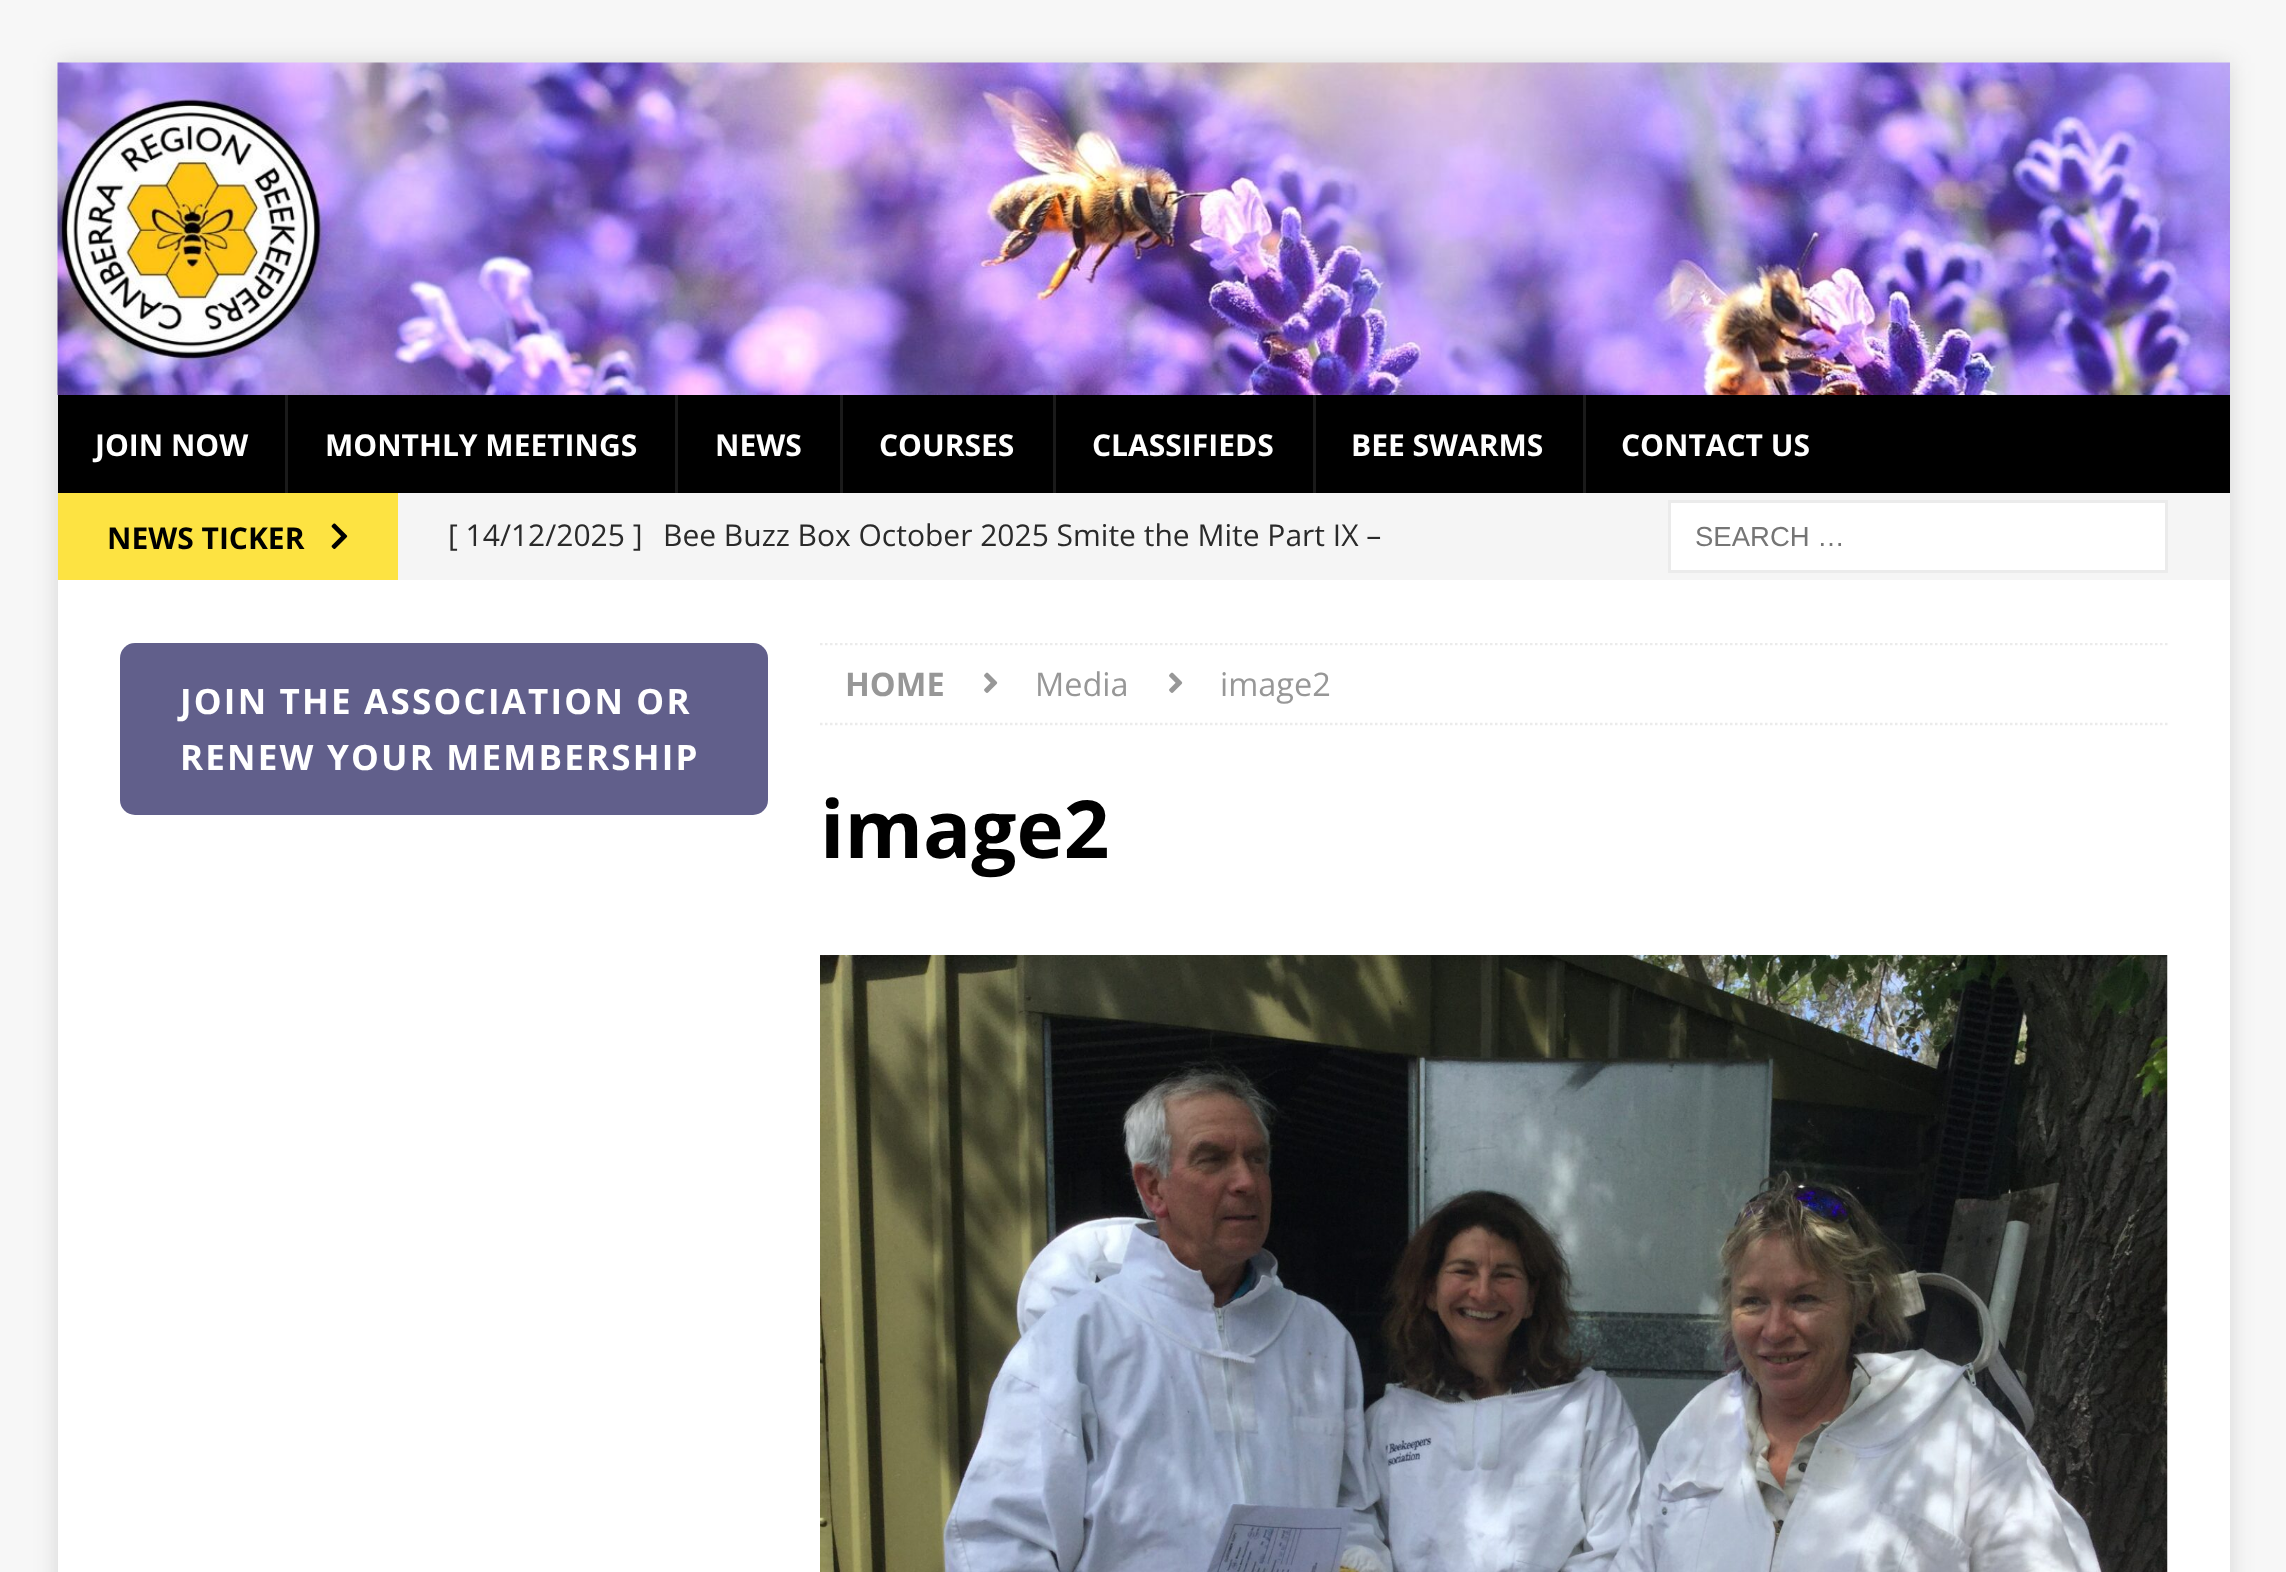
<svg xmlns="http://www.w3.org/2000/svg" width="2286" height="1572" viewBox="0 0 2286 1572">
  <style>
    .t1 { font: bold 30px Open Sans; fill: #fff; }
    .t2 { font: bold 30px Open Sans; fill: #000; }
    .t3 { font: 30px Open Sans; fill: #2a2a2a; }
    .t4 { font: 27.5px Liberation Sans; fill: #757575; }
    .t5 { font: bold 35px Open Sans; letter-spacing: 2.2px; fill: #fff; }
    .t6 { font: bold 32.5px Open Sans; fill: #979797; }
    .t7 { font: 32.5px Open Sans; fill: #979797; }
    .t8 { font: bold 80px Open Sans; fill: #000; }
  </style>
  <defs>
    <clipPath id="clip1"><rect x="820" y="643" width="1348" height="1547"/></clipPath>
  </defs>
  <rect width="100%" height="100%" fill="#f7f7f7"/>
  <rect x="58" y="63" width="2172" height="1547" fill="#3232322b" filter="blur(12.5px)"/>
  <image x="57" y="62" width="2173" height="333" href="images/1.png"/>
  <rect x="58" y="395" width="2172" height="98" fill="#000"/>
  <text x="95" y="456" class="t1">JOIN NOW</text>
  <rect x="285" y="395" width="3" height="98" fill="#1a1a1a"/>
  <text x="325" y="456" class="t1">MONTHLY MEETINGS</text>
  <rect x="675" y="395" width="3" height="98" fill="#1a1a1a"/>
  <text x="715" y="456" class="t1">NEWS</text>
  <rect x="840" y="395" width="3" height="98" fill="#1a1a1a"/>
  <text x="879" y="456" class="t1">COURSES</text>
  <rect x="1053" y="395" width="3" height="98" fill="#1a1a1a"/>
  <text x="1092" y="456" class="t1">CLASSIFIEDS</text>
  <rect x="1313" y="395" width="3" height="98" fill="#1a1a1a"/>
  <text x="1351" y="456" class="t1">BEE SWARMS</text>
  <rect x="1583" y="395" width="3" height="98" fill="#1a1a1a"/>
  <text x="1621" y="456" class="t1">CONTACT US</text>
  <rect x="398" y="493" width="1832" height="87" fill="#f5f5f5"/>
  <rect x="58" y="493" width="340" height="87" fill="#fde342"/>
  <text x="107" y="549" class="t2">NEWS TICKER</text>
  <image x="331" y="523" width="17" height="26" href="images/2.png"/>
  <text x="448" y="546" class="t3">[ 14/12/2025 ]</text>
  <text x="663" y="546" class="t3">Bee Buzz Box October 2025 Smite the Mite Part IX –</text>
  <rect x="1669.5" y="501.5" width="497" height="70" fill="#fff" stroke="#ebebeb" stroke-width="3"/>
  <text x="1695" y="546" class="t4">SEARCH …</text>
  <rect x="58" y="580" width="2172" height="992" fill="#fff"/>
  <rect x="120" y="643" width="648" height="172" rx="15" fill="#615f8b"/>
  <text x="180" y="714" class="t5">JOIN THE ASSOCIATION OR</text>
  <text x="180" y="770" class="t5">RENEW YOUR MEMBERSHIP</text>
  <g clip-path="url(#clip1)">
    <path d="M820 644H2167.5" fill="none" stroke="#ebebeb" stroke-width="2.5" stroke-dasharray="2.5 2.5"/>
  </g>
  <path d="M820 724H2167.5" fill="none" stroke="#ebebeb" stroke-width="2.5" stroke-dasharray="2.5 2.5"/>
  <text x="845" y="696" class="t6">HOME</text>
  <image x="984" y="672" width="14" height="21" href="images/3.png"/>
  <text x="1035" y="696" class="t7">Media</text>
  <image x="1169" y="672" width="14" height="21" href="images/3.png"/>
  <text x="1220" y="696" class="t7">image2</text>
  <text x="820" y="858" class="t8">image2</text>
  <image x="820" y="955" width="1348" height="617" href="images/4.png"/>
</svg>
